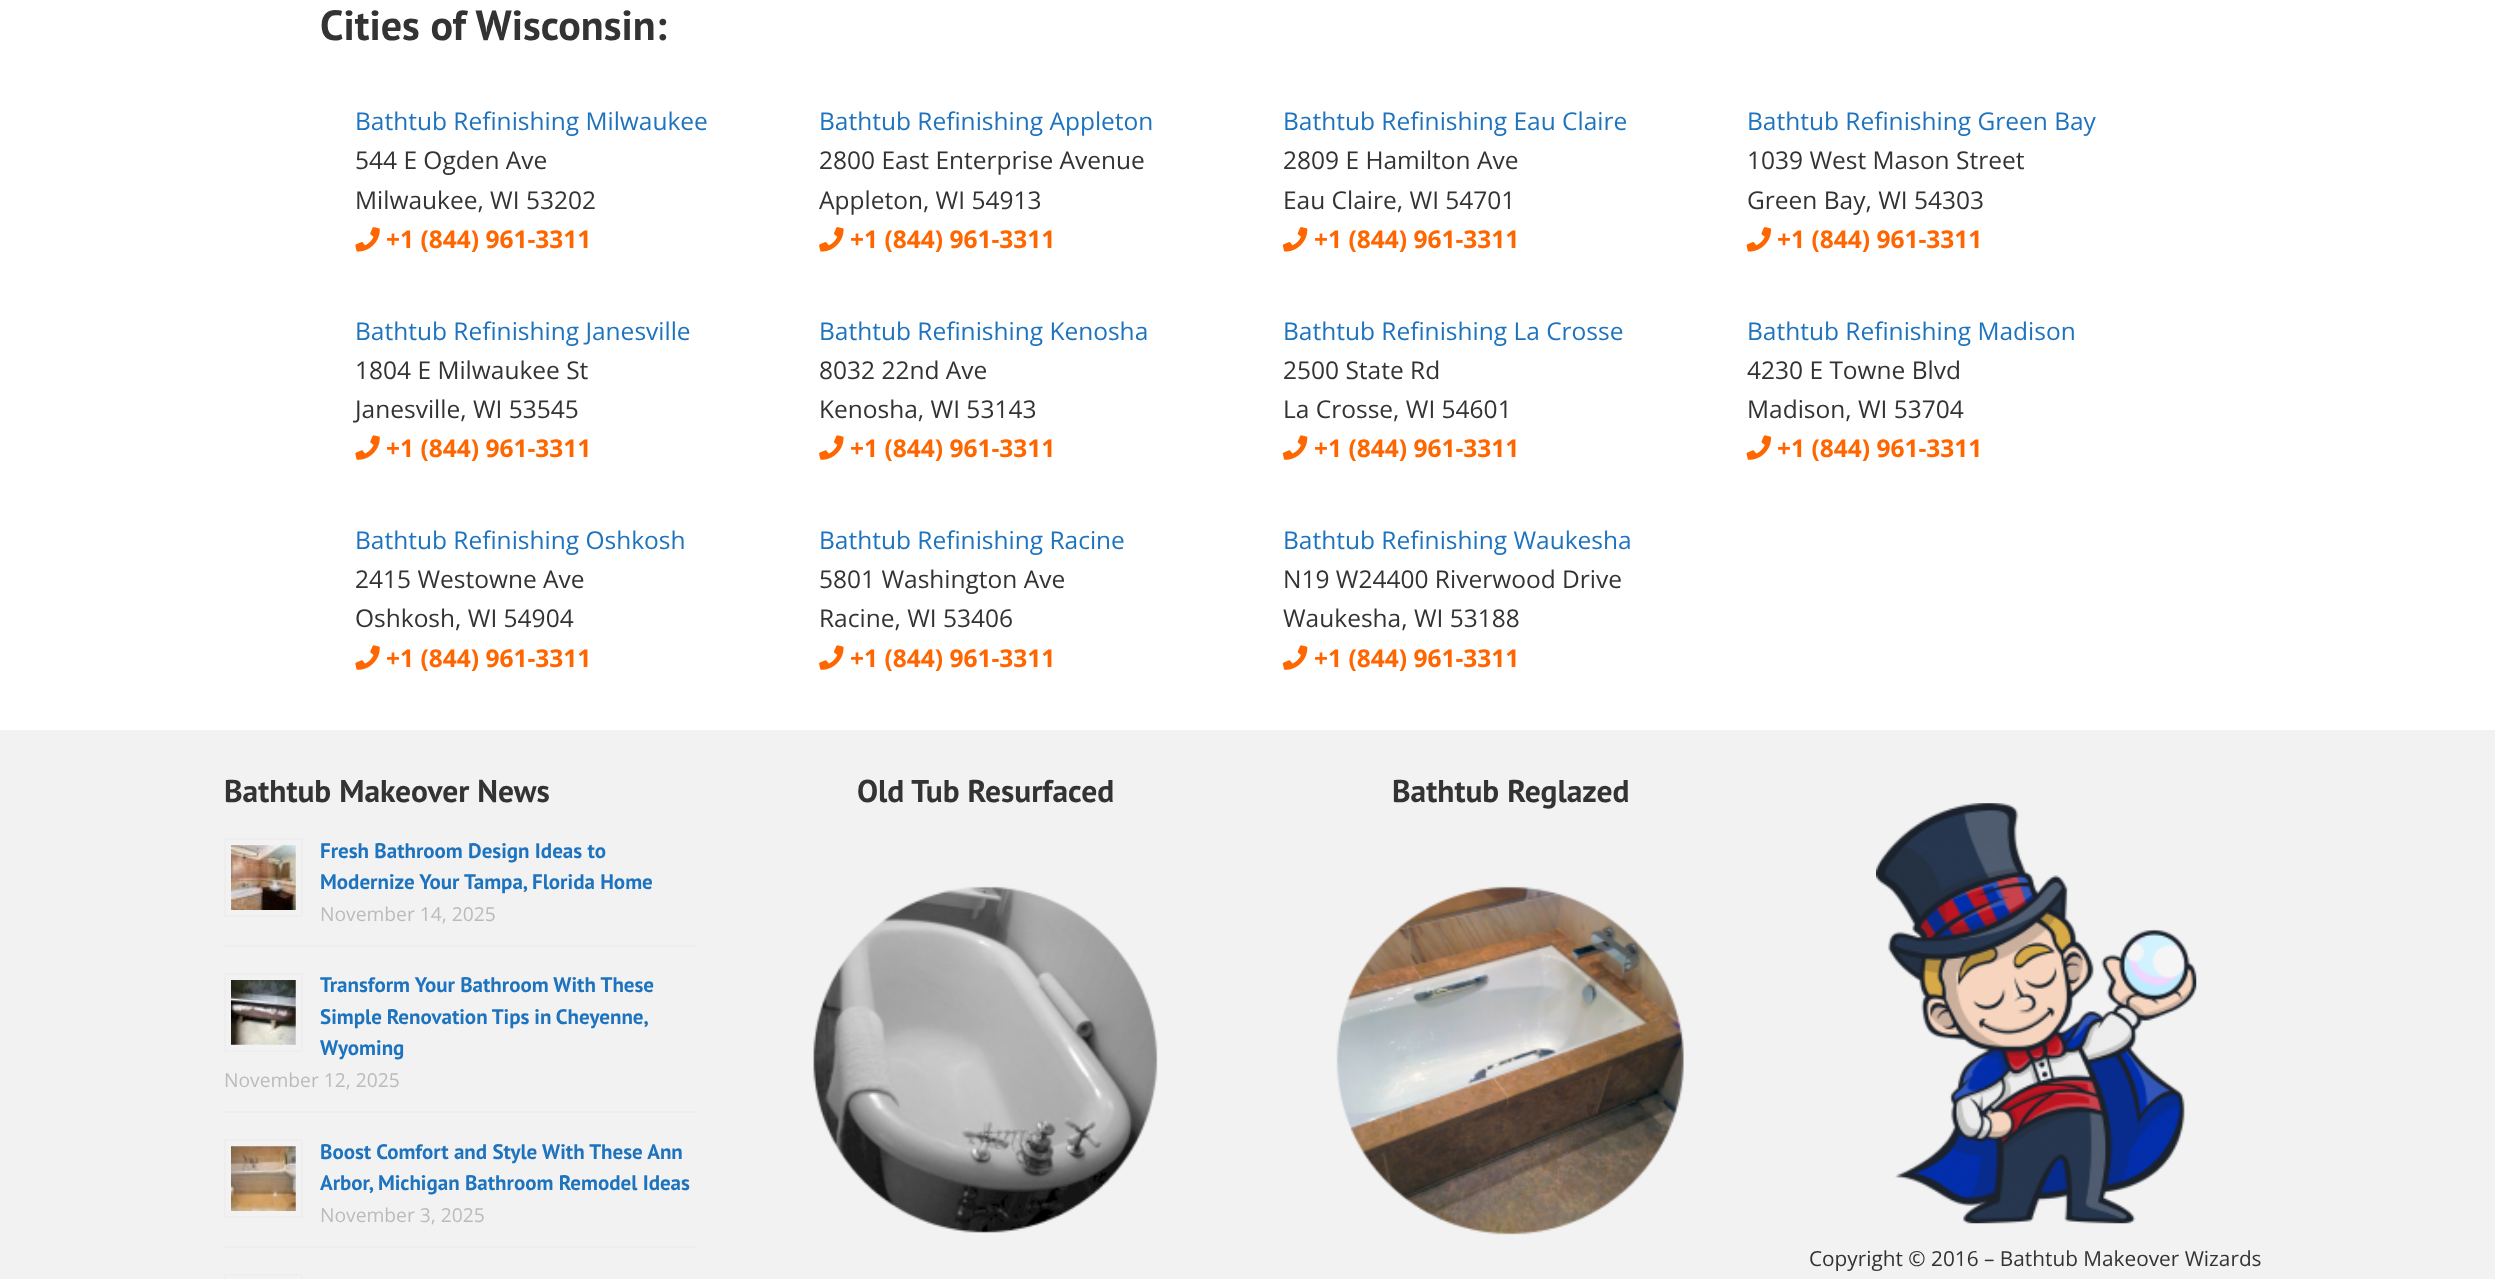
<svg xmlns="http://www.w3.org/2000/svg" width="2495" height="1279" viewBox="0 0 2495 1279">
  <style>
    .t1 { font: bold 42px PT Sans; fill: #333; }
    .t2 { font: 24.5px Open Sans; fill: #1e73be; }
    .t3 { font: 24.5px Open Sans; fill: #333; }
    .t4 { font: bold 24.5px Open Sans; fill: #f60; }
    .t5 { font: bold 31.5px PT Sans; fill: #333; }
    .t6 { font: bold 21px PT Sans; fill: #1e73be; }
    .t7 { font: 19.25px Open Sans; fill: #bbb; }
    .t8 { font: 20.8px Open Sans; fill: #333; }
  </style>
  <rect width="100%" height="100%" fill="#fff"/>
  <text x="320" y="40" class="t1">Cities of Wisconsin:</text>
  <text x="355" y="130" class="t2">Bathtub Refinishing Milwaukee</text>
  <text x="355" y="169" class="t3">544 E Ogden Ave</text>
  <text x="355" y="209" class="t3">Milwaukee, WI 53202</text>
  <image x="355" y="227" width="25" height="25" href="images/1.png"/>
  <text x="386" y="248" class="t4">+1 (844) 961-3311</text>
  <text x="819" y="130" class="t2">Bathtub Refinishing Appleton</text>
  <text x="819" y="169" class="t3">2800 East Enterprise Avenue</text>
  <text x="819" y="209" class="t3">Appleton, WI 54913</text>
  <image x="819" y="227" width="25" height="25" href="images/2.png"/>
  <text x="850" y="248" class="t4">+1 (844) 961-3311</text>
  <text x="1283" y="130" class="t2">Bathtub Refinishing Eau Claire</text>
  <text x="1283" y="169" class="t3">2809 E Hamilton Ave</text>
  <text x="1283" y="209" class="t3">Eau Claire, WI 54701</text>
  <image x="1282" y="227" width="26" height="25" href="images/3.png"/>
  <text x="1314" y="248" class="t4">+1 (844) 961-3311</text>
  <text x="1747" y="130" class="t2">Bathtub Refinishing Green Bay</text>
  <text x="1747" y="169" class="t3">1039 West Mason Street</text>
  <text x="1747" y="209" class="t3">Green Bay, WI 54303</text>
  <image x="1746" y="227" width="26" height="25" href="images/4.png"/>
  <text x="1777" y="248" class="t4">+1 (844) 961-3311</text>
  <text x="355" y="340" class="t2">Bathtub Refinishing Janesville</text>
  <text x="355" y="379" class="t3">1804 E Milwaukee St</text>
  <text x="355" y="418" class="t3">Janesville, WI 53545</text>
  <image x="355" y="435" width="25" height="25" href="images/5.png"/>
  <text x="386" y="457" class="t4">+1 (844) 961-3311</text>
  <text x="819" y="340" class="t2">Bathtub Refinishing Kenosha</text>
  <text x="819" y="379" class="t3">8032 22nd Ave</text>
  <text x="819" y="418" class="t3">Kenosha, WI 53143</text>
  <image x="819" y="435" width="25" height="25" href="images/6.png"/>
  <text x="850" y="457" class="t4">+1 (844) 961-3311</text>
  <text x="1283" y="340" class="t2">Bathtub Refinishing La Crosse</text>
  <text x="1283" y="379" class="t3">2500 State Rd</text>
  <text x="1283" y="418" class="t3">La Crosse, WI 54601</text>
  <image x="1282" y="435" width="26" height="25" href="images/7.png"/>
  <text x="1314" y="457" class="t4">+1 (844) 961-3311</text>
  <text x="1747" y="340" class="t2">Bathtub Refinishing Madison</text>
  <text x="1747" y="379" class="t3">4230 E Towne Blvd</text>
  <text x="1747" y="418" class="t3">Madison, WI 53704</text>
  <image x="1746" y="435" width="25" height="25" href="images/8.png"/>
  <text x="1777" y="457" class="t4">+1 (844) 961-3311</text>
  <text x="355" y="549" class="t2">Bathtub Refinishing Oshkosh</text>
  <text x="355" y="588" class="t3">2415 Westowne Ave</text>
  <text x="355" y="627" class="t3">Oshkosh, WI 54904</text>
  <image x="355" y="645" width="25" height="25" href="images/5.png"/>
  <text x="386" y="667" class="t4">+1 (844) 961-3311</text>
  <text x="819" y="549" class="t2">Bathtub Refinishing Racine</text>
  <text x="819" y="588" class="t3">5801 Washington Ave</text>
  <text x="819" y="627" class="t3">Racine, WI 53406</text>
  <image x="819" y="645" width="25" height="25" href="images/6.png"/>
  <text x="850" y="667" class="t4">+1 (844) 961-3311</text>
  <text x="1283" y="549" class="t2">Bathtub Refinishing Waukesha</text>
  <text x="1283" y="588" class="t3">N19 W24400 Riverwood Drive</text>
  <text x="1283" y="627" class="t3">Waukesha, WI 53188</text>
  <image x="1282" y="645" width="26" height="25" href="images/7.png"/>
  <text x="1314" y="667" class="t4">+1 (844) 961-3311</text>
  <rect x="0" y="730" width="2495" height="549" fill="#f2f2f2"/>
  <text x="224" y="802" class="t5">Bathtub Makeover News</text>
  <rect x="224" y="945" width="473" height="2" fill="#eee"/>
  <rect x="225" y="839" width="77" height="77" fill="none" stroke="#eee" stroke-width="2"/>
  <image x="231" y="845" width="65" height="65" href="images/9.png"/>
  <text x="320" y="858" class="t6">Fresh Bathroom Design Ideas to</text>
  <text x="320" y="889" class="t6">Modernize Your Tampa, Florida Home</text>
  <text x="320" y="921" class="t7">November 14, 2025</text>
  <rect x="224" y="1111" width="473" height="2" fill="#eee"/>
  <rect x="225" y="974" width="77" height="77" fill="none" stroke="#eee" stroke-width="2"/>
  <image x="231" y="980" width="65" height="65" href="images/10.png"/>
  <text x="320" y="992" class="t6">Transform Your Bathroom With These</text>
  <text x="320" y="1024" word-spacing="-0.5" class="t6">Simple Renovation Tips in Cheyenne,</text>
  <text x="320" y="1055" class="t6">Wyoming</text>
  <text x="224" y="1087" class="t7">November 12, 2025</text>
  <rect x="224" y="1246" width="473" height="2" fill="#eee"/>
  <rect x="225" y="1140" width="77" height="77" fill="none" stroke="#eee" stroke-width="2"/>
  <image x="231" y="1146" width="65" height="65" href="images/11.png"/>
  <text x="320" y="1159" class="t6">Boost Comfort and Style With These Ann</text>
  <text x="320" y="1190" class="t6">Arbor, Michigan Bathroom Remodel Ideas</text>
  <text x="320" y="1222" class="t7">November 3, 2025</text>
  <rect x="225" y="1275" width="77" height="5" fill="none" stroke="#eee" stroke-width="2"/>
  <text x="857" y="802" class="t5">Old Tub Resurfaced</text>
  <image x="813" y="886" width="345" height="347" href="images/12.png"/>
  <text x="1392" y="802" class="t5">Bathtub Reglazed</text>
  <image x="1336" y="886" width="348" height="349" href="images/13.png"/>
  <image x="1876" y="803" width="321" height="421" href="images/14.png"/>
  <text x="1809" y="1266" class="t8">Copyright © 2016 – Bathtub Makeover Wizards</text>
</svg>
